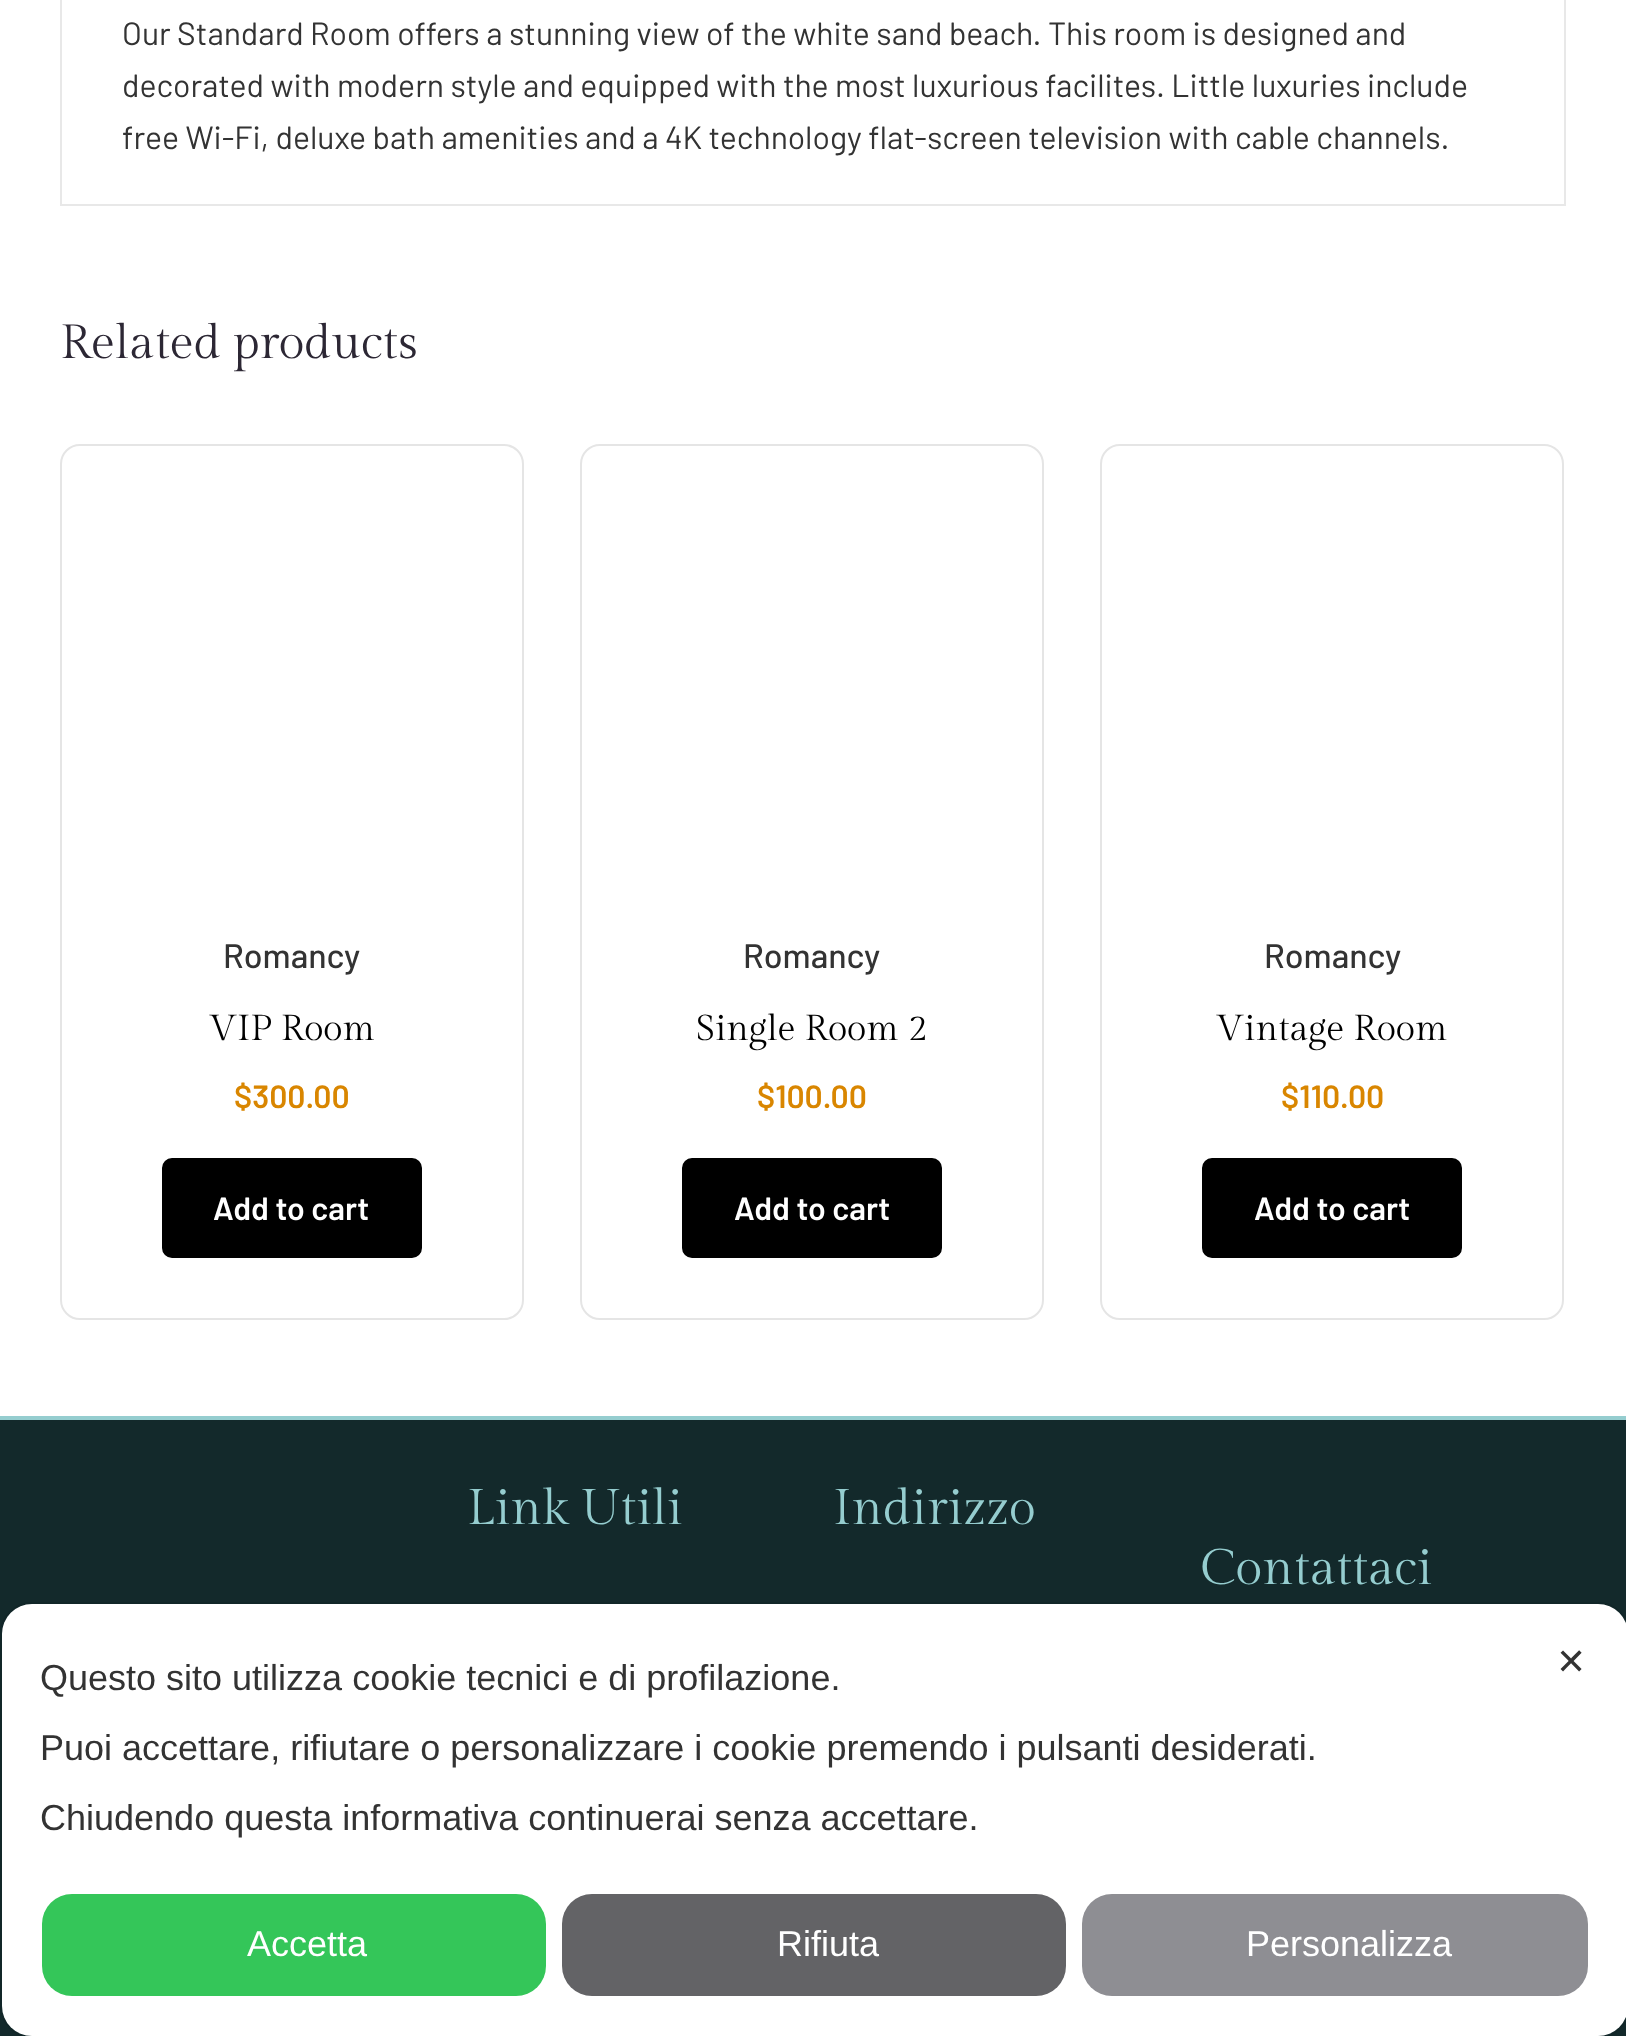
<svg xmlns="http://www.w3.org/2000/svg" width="1626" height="2036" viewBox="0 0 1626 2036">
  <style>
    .t1 { font: 32px Barlow; fill: #333; }
    .t2 { font: 48px Gilda Display; fill: #2c2734; }
    .t3 { font: 500 34px Barlow; fill: #333; }
    .t4 { font: 36px Gilda Display; fill: #000; }
    .t5 { font: 600 32px Barlow; fill: #d98600; }
    .t6 { font: 600 32px Barlow; fill: #fff; }
    .t7 { font: 50px Gilda Display; fill: #95cdcf; }
    .t8 { font: 36px Liberation Sans; fill: #333; }
    .t9 { font: 36px Liberation Sans; fill: #fff; }
    .t10 { font: 36px DejaVu Sans; fill: #333; }
  </style>
  <rect width="100%" height="100%" fill="#fff"/>
  <rect x="1564" y="0" width="2" height="206" fill="#e8e8e8"/>
  <rect x="60" y="204" width="1506" height="2" fill="#e8e8e8"/>
  <rect x="60" y="0" width="2" height="206" fill="#e8e8e8"/>
  <text x="122" y="45" class="t1">Our Standard Room offers a stunning view of the white sand beach. This room is designed and</text>
  <text x="122" y="97" class="t1">decorated with modern style and equipped with the most luxurious facilites. Little luxuries include</text>
  <text x="122" y="149" class="t1">free Wi-Fi, deluxe bath amenities and a 4K technology flat-screen television with cable channels.</text>
  <text x="60" y="358" class="t2">Related products</text>
  <rect x="61" y="445" width="462" height="874" rx="19" fill="none" stroke="#e5e5e5" stroke-width="2"/>
  <text x="223" y="968" class="t3">Romancy</text>
  <text x="209" y="1040" class="t4">VIP Room</text>
  <text x="234" y="1108" class="t5">$300.00</text>
  <rect x="163" y="1159" width="258" height="98" rx="9" fill="#000" stroke="#000" stroke-width="2"/>
  <text x="213" y="1220" class="t6">Add to cart</text>
  <rect x="581" y="445" width="462" height="874" rx="19" fill="none" stroke="#e5e5e5" stroke-width="2"/>
  <text x="743" y="968" class="t3">Romancy</text>
  <text x="696" y="1040" class="t4">Single Room 2</text>
  <text x="757" y="1108" class="t5">$100.00</text>
  <rect x="683" y="1159" width="258" height="98" rx="9" fill="#000" stroke="#000" stroke-width="2"/>
  <text x="734" y="1220" class="t6">Add to cart</text>
  <rect x="1101" y="445" width="462" height="874" rx="19" fill="none" stroke="#e5e5e5" stroke-width="2"/>
  <text x="1264" y="968" class="t3">Romancy</text>
  <text x="1216" y="1040" class="t4">Vintage Room</text>
  <text x="1281" y="1108" class="t5">$110.00</text>
  <rect x="1203" y="1159" width="258" height="98" rx="9" fill="#000" stroke="#000" stroke-width="2"/>
  <text x="1254" y="1220" class="t6">Add to cart</text>
  <rect x="0" y="1420" width="1626" height="616" fill="#13292b"/>
  <rect x="0" y="1416" width="1626" height="4" fill="#95cdcf"/>
  <text x="467" y="1524" class="t7">Link Utili</text>
  <text x="833" y="1524" class="t7">Indirizzo</text>
  <text x="1200" y="1584" class="t7">Contattaci</text>
  <rect x="1" y="1603" width="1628" height="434" rx="31" fill="none" stroke="#112628" stroke-width="2"/>
  <rect x="2" y="1604" width="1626" height="432" rx="30" fill="#fff"/>
  <text x="40" y="1690" class="t8">Questo sito utilizza cookie tecnici e di profilazione.</text>
  <text x="40" y="1760" class="t8">Puoi accettare, rifiutare o personalizzare i cookie premendo i pulsanti desiderati.</text>
  <text x="40" y="1830" class="t8">Chiudendo questa informativa continuerai senza accettare.</text>
  <rect x="42" y="1894" width="504" height="102" rx="30" fill="#34c659"/>
  <text x="247" y="1956" class="t9">Accetta</text>
  <rect x="562" y="1894" width="504" height="102" rx="30" fill="#636366"/>
  <text x="777" y="1956" class="t9">Rifiuta</text>
  <rect x="1082" y="1894" width="506" height="102" rx="30" fill="#8e8e93"/>
  <text x="1246" y="1956" class="t9">Personalizza</text>
  <text x="1556" y="1674" class="t10">✕</text>
</svg>
